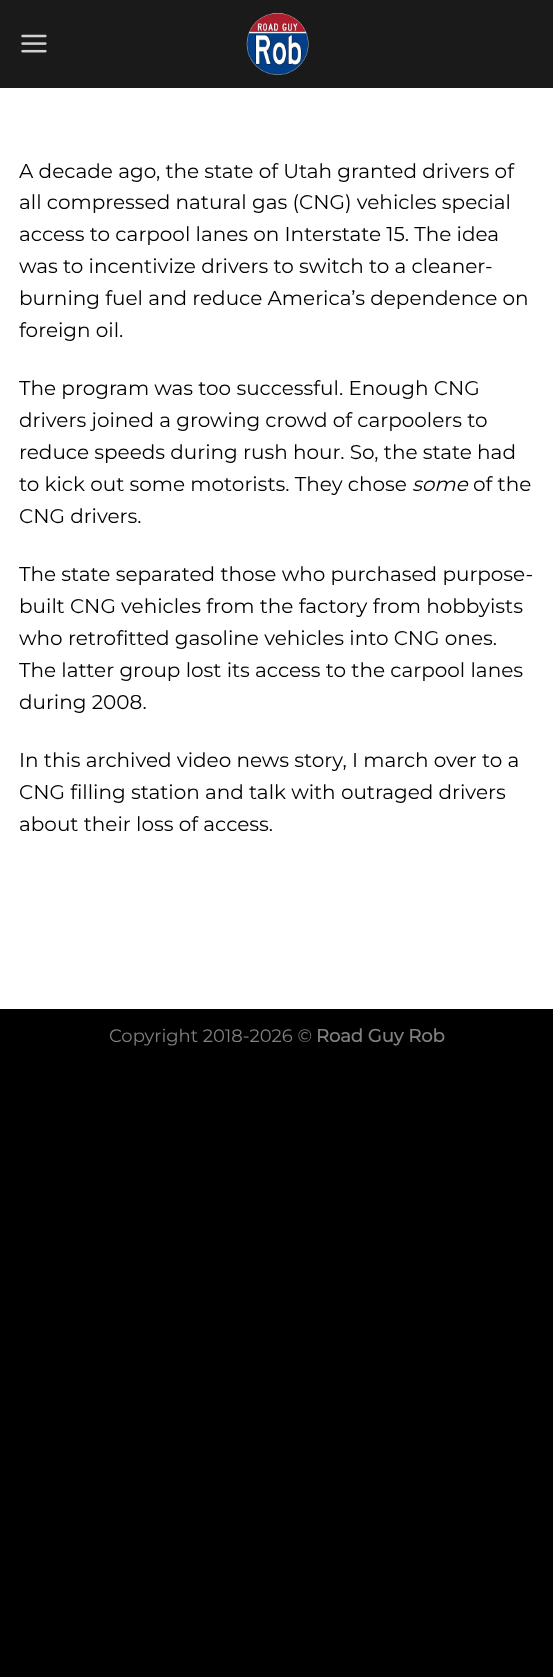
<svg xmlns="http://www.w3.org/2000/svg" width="553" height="1677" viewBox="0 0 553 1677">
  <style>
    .t1 { font: 100 20px Montserrat; fill: #000; }
    .t2 { font: italic 100 20px Montserrat; fill: #000; }
    .t3 { font: 100 18px Montserrat; fill: #808080; }
    .t4 { font: bold 18px Montserrat; fill: #808080; }
  </style>
  <rect width="100%" height="100%" fill="#000"/>
  <rect x="0" y="88" width="553" height="921" fill="#fff"/>
  <rect x="0" y="0" width="553" height="88" fill="#1a1a1a"/>
  <image x="21" y="34" width="26" height="19" href="images/1.png"/>
  <image x="246" y="12" width="63" height="63" href="images/2.png"/>
  <text x="19" y="178" class="t1">A decade ago, the state of Utah granted drivers of</text>
  <text x="19" y="209" class="t1">all compressed natural gas (CNG) vehicles special</text>
  <text x="19" y="241" class="t1">access to carpool lanes on Interstate 15. The idea</text>
  <text x="19" y="273" class="t1">was to incentivize drivers to switch to a cleaner-</text>
  <text x="19" y="305" class="t1">burning fuel and reduce America’s dependence on</text>
  <text x="19" y="337" class="t1">foreign oil.</text>
  <text x="19" y="395" class="t1">The program was too successful. Enough CNG</text>
  <text x="19" y="427" class="t1">drivers joined a growing crowd of carpoolers to</text>
  <text x="19" y="459" class="t1">reduce speeds during rush hour. So, the state had</text>
  <text x="19" y="491" class="t1">to kick out some motorists. They chose</text>
  <text x="412" y="491" class="t2">some</text>
  <text x="473" y="491" class="t1">of the</text>
  <text x="19" y="523" class="t1">CNG drivers.</text>
  <text x="19" y="581" class="t1">The state separated those who purchased purpose-</text>
  <text x="19" y="613" class="t1">built CNG vehicles from the factory from hobbyists</text>
  <text x="19" y="645" class="t1">who retrofitted gasoline vehicles into CNG ones.</text>
  <text x="19" y="677" class="t1">The latter group lost its access to the carpool lanes</text>
  <text x="19" y="709" class="t1">during 2008.</text>
  <text x="19" y="767" class="t1">In this archived video news story, I march over to a</text>
  <text x="19" y="799" class="t1">CNG filling station and talk with outraged drivers</text>
  <text x="19" y="831" class="t1">about their loss of access.</text>
  <text x="109" y="1042" class="t3">Copyright 2018-2026 ©</text>
  <text x="316" y="1042" class="t4">Road Guy Rob</text>
</svg>
